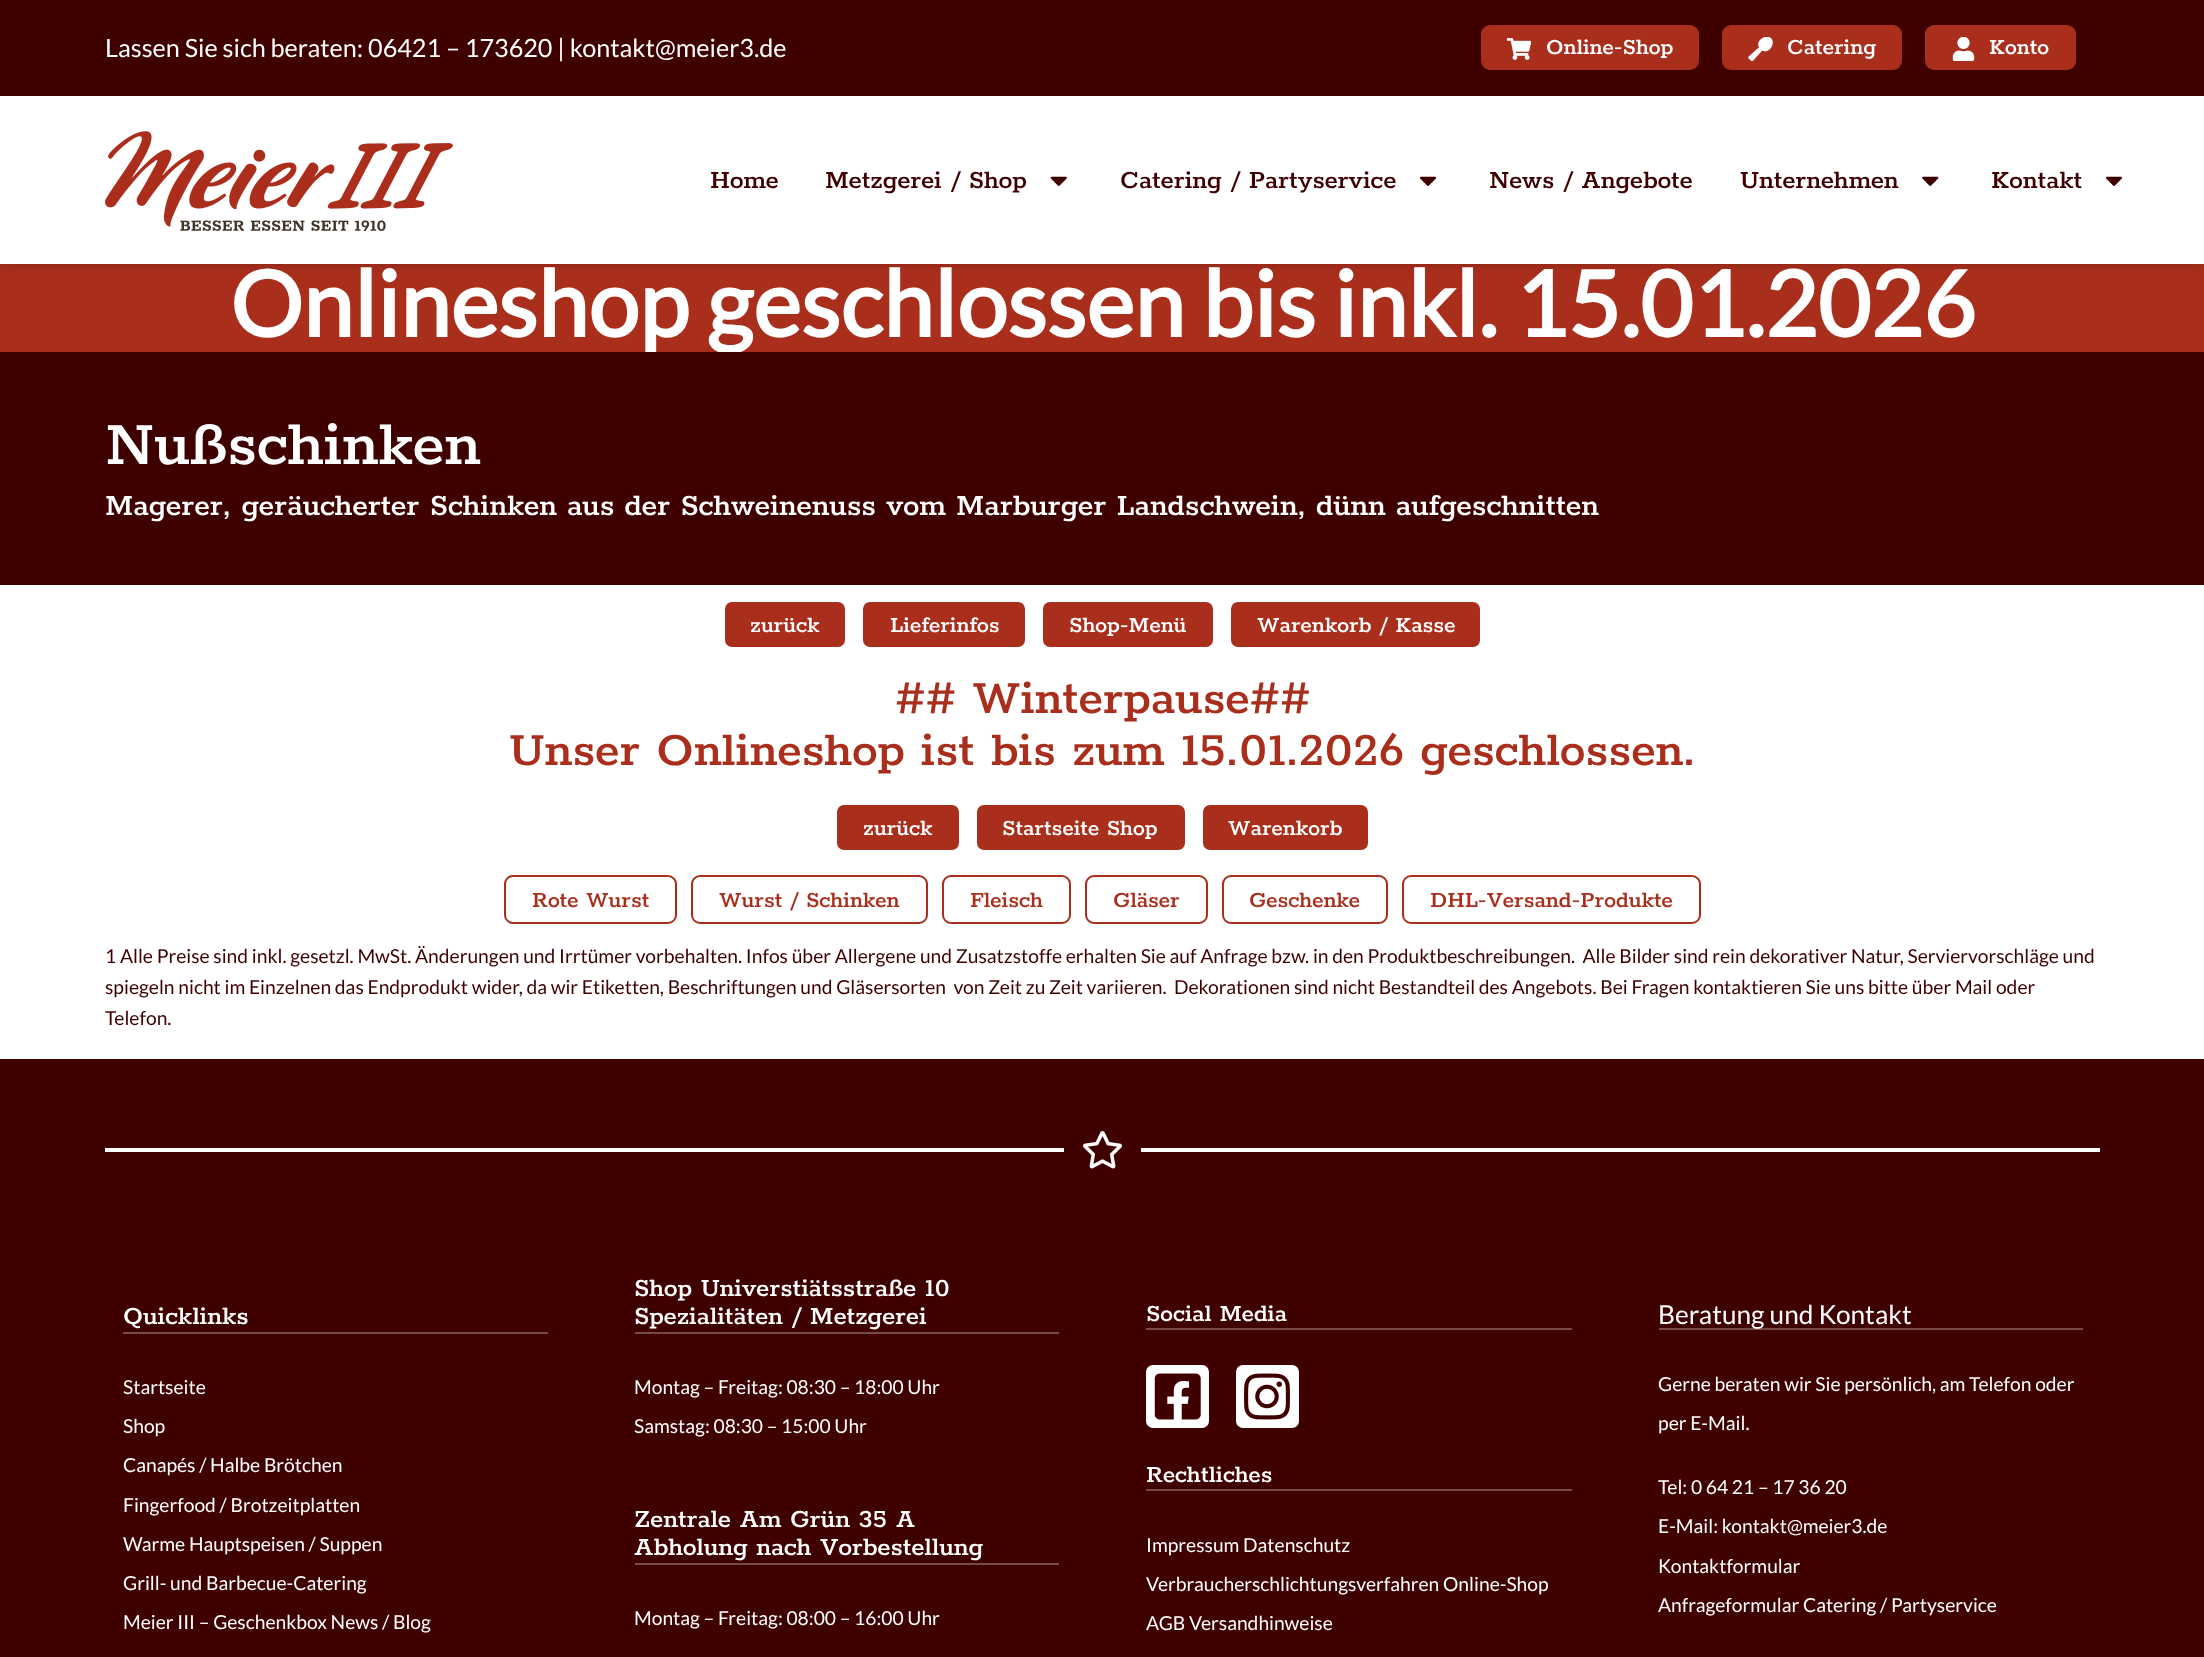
<svg xmlns="http://www.w3.org/2000/svg" width="2204" height="1657" viewBox="0 0 2204 1657">
  <style>
    .t1 { font: 25.2px Lato; fill: #fff; }
    .t2 { font: 600 24.5px Rokkitt; fill: #fff; }
    .t3 { font: 600 28px Rokkitt; fill: #3f0000; }
    .t4 { font: bold 91px Lato; fill: #fff; }
    .t5 { font: 600 68.25px Rokkitt; fill: #fff; }
    .t6 { font: 600 33.25px Rokkitt; fill: #fff; }
    .t7 { font: 600 52.5px Rokkitt; fill: #a92e1c; }
    .t8 { font: 600 24.5px Rokkitt; fill: #a92e1c; }
    .t9 { font: 19.25px Lato; fill: #3f0000; }
    .t10 { font: 600 28px Rokkitt; fill: #fff; }
    .t11 { font: 19.25px Lato; fill: #fff; }
    .t12 { font: 600 26.25px Rokkitt; fill: #fff; }
    .t13 { font: 26.25px Lato; fill: #fff; }
  </style>
  <rect width="100%" height="100%" fill="#fff"/>
  <rect x="0" y="264" width="2204" height="88" fill="#a92e1c"/>
  <rect x="0" y="91" width="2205" height="168" fill="#00000080" filter="blur(7px)"/>
  <rect x="0" y="0" width="2204" height="96" fill="#3f0000"/>
  <text x="105" y="57" class="t1">Lassen Sie sich beraten: 06421 – 173620 | kontakt@meier3.de</text>
  <rect x="1481" y="25" width="218" height="45" rx="9" fill="#a92e1c"/>
  <image x="1507" y="38" width="24" height="22" href="images/1.png"/>
  <text x="1546" y="54" class="t2">Online-Shop</text>
  <rect x="1722" y="25" width="180" height="45" rx="9" fill="#a92e1c"/>
  <image x="1748" y="37" width="25" height="24" href="images/2.png"/>
  <text x="1787" y="54" class="t2">Catering</text>
  <rect x="1925" y="25" width="151" height="45" rx="9" fill="#a92e1c"/>
  <image x="1952" y="37" width="23" height="24" href="images/3.png"/>
  <text x="1989" y="54" class="t2">Konto</text>
  <rect x="0" y="96" width="2204" height="168" fill="#fff"/>
  <image x="105" y="131" width="348" height="100" href="images/4.png"/>
  <text x="710" y="188" class="t3">Home</text>
  <text x="825" y="188" class="t3">Metzgerei / Shop</text>
  <image x="1050" y="176" width="17" height="10" href="images/5.png"/>
  <text x="1120" y="188" class="t3">Catering / Partyservice</text>
  <image x="1419" y="176" width="18" height="10" href="images/6.png"/>
  <text x="1489" y="188" class="t3">News / Angebote</text>
  <text x="1740" y="188" class="t3">Unternehmen</text>
  <image x="1922" y="176" width="17" height="10" href="images/7.png"/>
  <text x="1991" y="188" class="t3">Kontakt</text>
  <image x="2105" y="176" width="18" height="10" href="images/6.png"/>
  <text x="230" y="337" class="t4">Onlineshop geschlossen bis inkl. 15.01.2026</text>
  <rect x="0" y="352" width="2204" height="233" fill="#3f0000"/>
  <text x="105" y="464" class="t5">Nußschinken</text>
  <text x="105" y="515" class="t6">Magerer, geräucherter Schinken aus der Schweinenuss vom Marburger Landschwein, dünn aufgeschnitten</text>
  <rect x="724" y="601" width="122" height="47" rx="8" fill="#a92e1c" stroke="#fff" stroke-width="2"/>
  <text x="750" y="632" class="t2">zurück</text>
  <rect x="862" y="601" width="164" height="47" rx="8" fill="#a92e1c" stroke="#fff" stroke-width="2"/>
  <text x="890" y="632" class="t2">Lieferinfos</text>
  <rect x="1042" y="601" width="172" height="47" rx="8" fill="#a92e1c" stroke="#fff" stroke-width="2"/>
  <text x="1069" y="632" class="t2">Shop-Menü</text>
  <rect x="1230" y="601" width="251" height="47" rx="8" fill="#a92e1c" stroke="#fff" stroke-width="2"/>
  <text x="1257" y="632" class="t2">Warenkorb / Kasse</text>
  <text x="895" y="713" class="t7">## Winterpause##</text>
  <text x="509" y="765" class="t7">Unser Onlineshop ist bis zum 15.01.2026 geschlossen.</text>
  <rect x="836" y="804" width="124" height="47" rx="8" fill="#a92e1c" stroke="#fff" stroke-width="2"/>
  <text x="863" y="835" class="t2">zurück</text>
  <rect x="976" y="804" width="210" height="47" rx="8" fill="#a92e1c" stroke="#fff" stroke-width="2"/>
  <text x="1002" y="835" class="t2">Startseite Shop</text>
  <rect x="1202" y="804" width="167" height="47" rx="8" fill="#a92e1c" stroke="#fff" stroke-width="2"/>
  <text x="1228" y="835" class="t2">Warenkorb</text>
  <rect x="505" y="876" width="171" height="47" rx="8" fill="none" stroke="#a92e1c" stroke-width="2"/>
  <text x="532" y="907" class="t8">Rote Wurst</text>
  <rect x="692" y="876" width="235" height="47" rx="8" fill="none" stroke="#a92e1c" stroke-width="2"/>
  <text x="719" y="907" class="t8">Wurst / Schinken</text>
  <rect x="943" y="876" width="127" height="47" rx="8" fill="none" stroke="#a92e1c" stroke-width="2"/>
  <text x="970" y="907" class="t8">Fleisch</text>
  <rect x="1086" y="876" width="121" height="47" rx="8" fill="none" stroke="#a92e1c" stroke-width="2"/>
  <text x="1113" y="907" class="t8">Gläser</text>
  <rect x="1223" y="876" width="164" height="47" rx="8" fill="none" stroke="#a92e1c" stroke-width="2"/>
  <text x="1249" y="907" class="t8">Geschenke</text>
  <rect x="1403" y="876" width="297" height="47" rx="8" fill="none" stroke="#a92e1c" stroke-width="2"/>
  <text x="1430" y="907" class="t8">DHL-Versand-Produkte</text>
  <text x="105" y="963" class="t9" xml:space="preserve">1 Alle Preise sind inkl. gesetzl. MwSt. Änderungen und Irrtümer vorbehalten. Infos über Allergene und Zusatzstoffe erhalten Sie auf Anfrage bzw. in den Produktbeschreibungen.  Alle Bilder sind rein dekorativer Natur, Serviervorschläge und</text>
  <text x="105" y="994" class="t9" xml:space="preserve">spiegeln nicht im Einzelnen das Endprodukt wider, da wir Etiketten, Beschriftungen und Gläsersorten  von Zeit zu Zeit variieren.  Dekorationen sind nicht Bestandteil des Angebots. Bei Fragen kontaktieren Sie uns bitte über Mail oder</text>
  <text x="105" y="1025" class="t9">Telefon.</text>
  <rect x="0" y="1059" width="2204" height="598" fill="#3f0000"/>
  <rect x="105" y="1148" width="959" height="4" fill="#fff"/>
  <image x="1083" y="1131" width="39" height="38" href="images/8.png"/>
  <rect x="1141" y="1148" width="959" height="4" fill="#fff"/>
  <rect x="123" y="1332" width="425" height="2" fill="#774a4a"/>
  <text x="123" y="1324" class="t10">Quicklinks</text>
  <text x="123" y="1394" class="t11">Startseite</text>
  <text x="123" y="1433" class="t11">Shop</text>
  <text x="123" y="1472" class="t11">Canapés / Halbe Brötchen</text>
  <text x="123" y="1512" class="t11">Fingerfood / Brotzeitplatten</text>
  <text x="123" y="1551" class="t11">Warme Hauptspeisen / Suppen</text>
  <text x="123" y="1590" class="t11">Grill- und Barbecue-Catering</text>
  <text x="123" y="1629" class="t11">Meier III – Geschenkbox News / Blog</text>
  <rect x="635" y="1332" width="424" height="2" fill="#774a4a"/>
  <text x="634" y="1296" class="t10">Shop Universtiätsstraße 10</text>
  <text x="634" y="1324" class="t10">Spezialitäten / Metzgerei</text>
  <text x="634" y="1394" class="t11">Montag – Freitag: 08:30 – 18:00 Uhr</text>
  <text x="634" y="1433" class="t11">Samstag: 08:30 – 15:00 Uhr</text>
  <rect x="635" y="1563" width="424" height="2" fill="#774a4a"/>
  <text x="634" y="1527" class="t10">Zentrale Am Grün 35 A</text>
  <text x="634" y="1555" class="t10">Abholung nach Vorbestellung</text>
  <text x="634" y="1625" class="t11">Montag – Freitag: 08:00 – 16:00 Uhr</text>
  <rect x="1146" y="1328" width="426" height="2" fill="#774a4a"/>
  <text x="1146" y="1321" class="t12">Social Media</text>
  <rect x="1146" y="1365" width="63" height="63" rx="7" fill="#fff"/>
  <image x="1154" y="1373" width="47" height="47" href="images/9.png"/>
  <rect x="1236" y="1365" width="63" height="63" rx="7" fill="#fff"/>
  <image x="1244" y="1373" width="46" height="47" href="images/10.png"/>
  <rect x="1146" y="1489" width="426" height="2" fill="#774a4a"/>
  <text x="1146" y="1482" class="t12">Rechtliches</text>
  <text x="1146" y="1552" class="t11">Impressum Datenschutz</text>
  <text x="1146" y="1591" class="t11">Verbraucherschlichtungsverfahren Online-Shop</text>
  <text x="1146" y="1630" class="t11">AGB Versandhinweise</text>
  <rect x="1659" y="1328" width="424" height="2" fill="#774a4a"/>
  <text x="1658" y="1324" class="t13">Beratung und Kontakt</text>
  <text x="1658" y="1391" class="t11">Gerne beraten wir Sie persönlich, am Telefon oder</text>
  <text x="1658" y="1430" class="t11">per E-Mail.</text>
  <text x="1658" y="1494" class="t11">Tel: 0 64 21 – 17 36 20</text>
  <text x="1658" y="1533" class="t11">E-Mail: kontakt@meier3.de</text>
  <text x="1658" y="1573" class="t11">Kontaktformular</text>
  <text x="1658" y="1612" class="t11">Anfrageformular Catering / Partyservice</text>
</svg>
